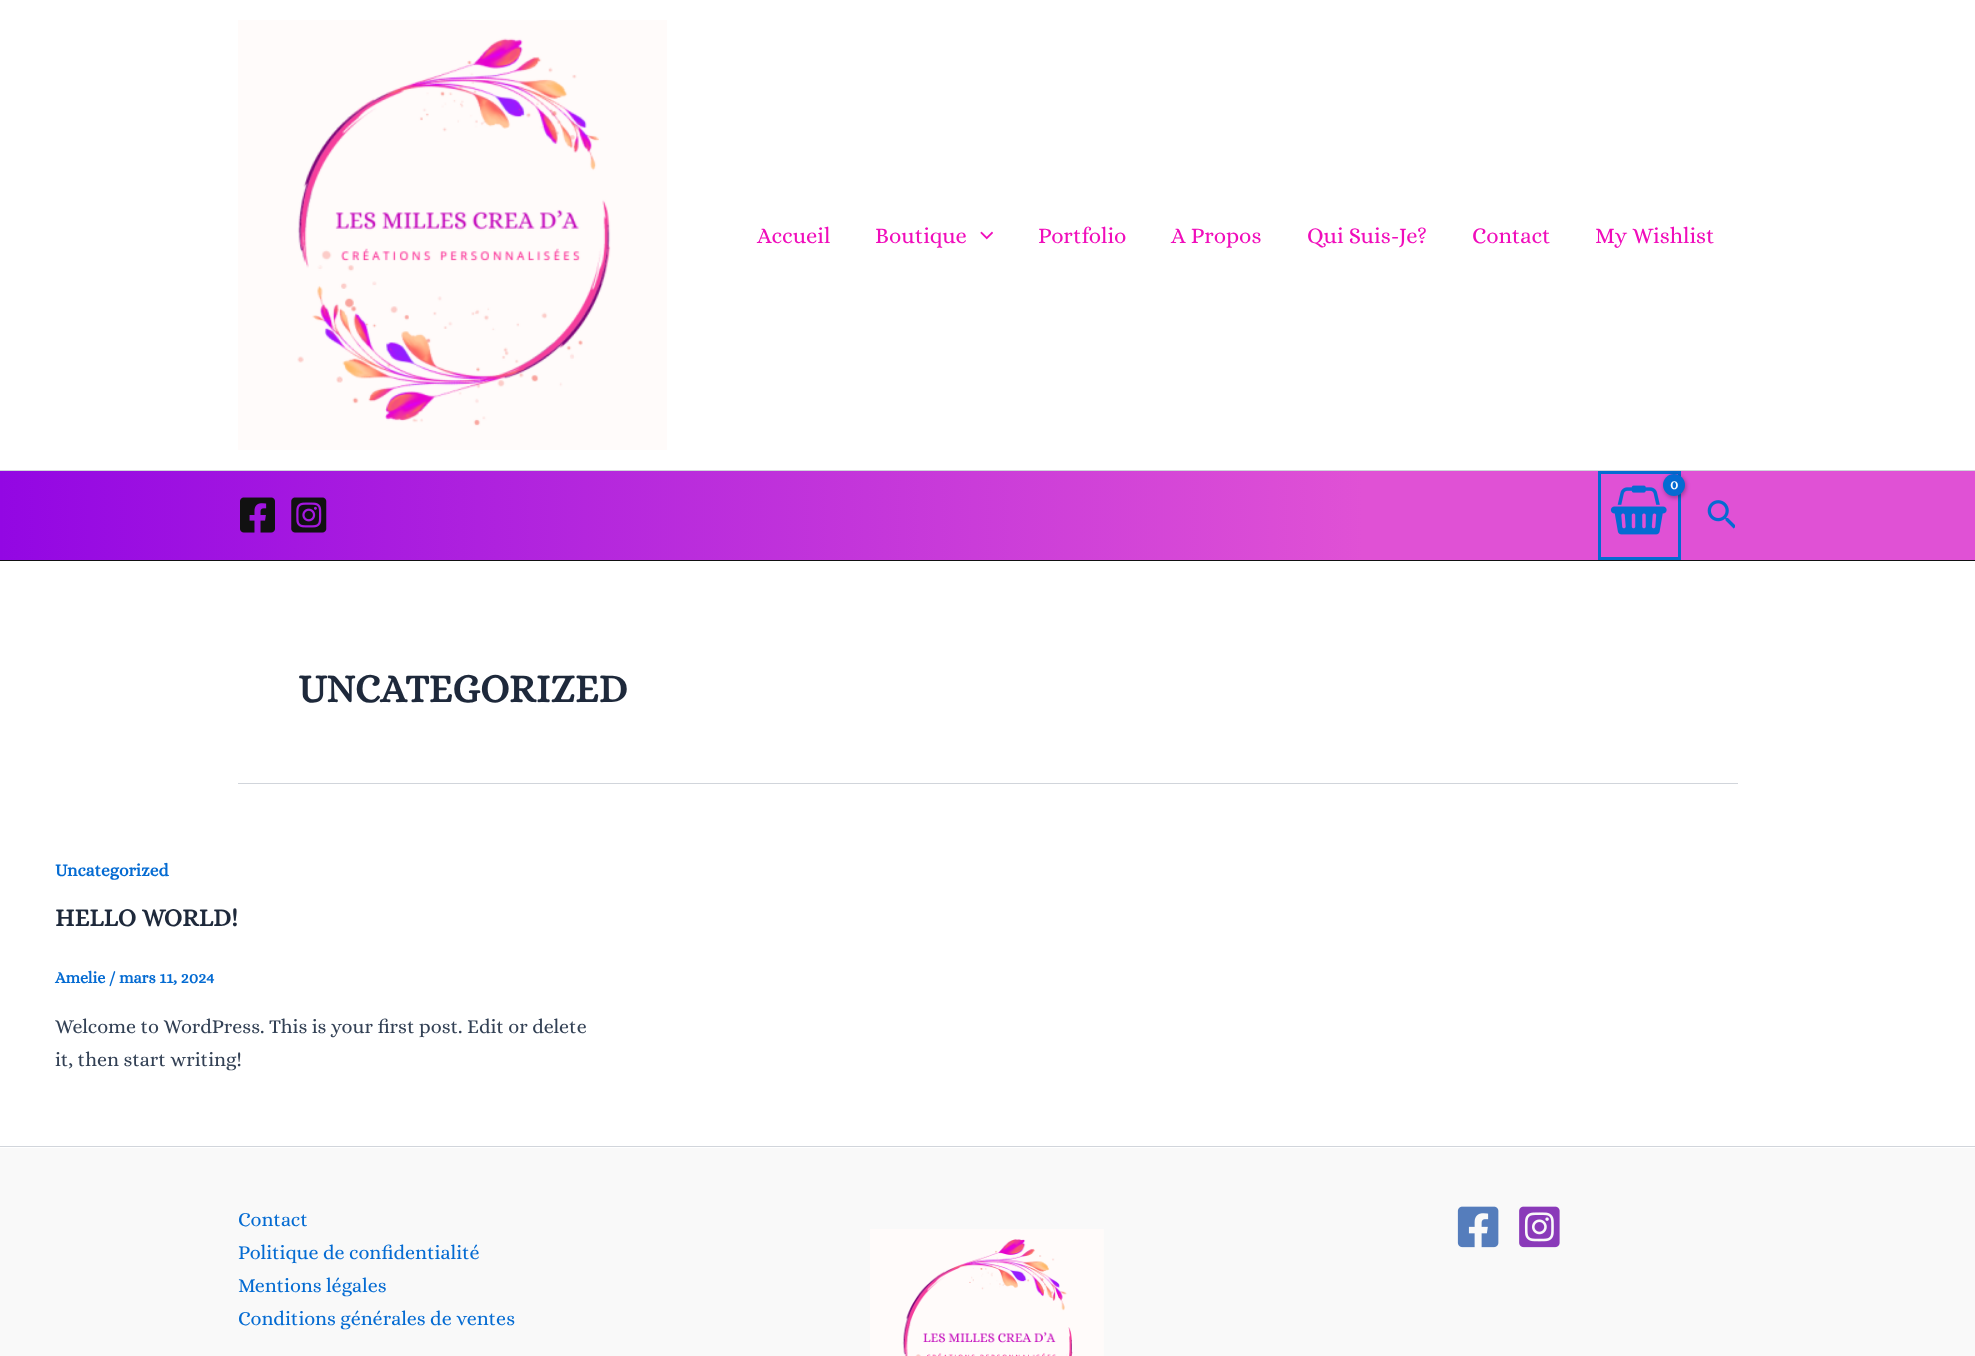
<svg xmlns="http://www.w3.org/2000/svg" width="1975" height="1356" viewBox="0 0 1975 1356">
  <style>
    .t1 { font: 22.5px Alice; fill: #f00dbb; }
    .t2 { font: bold 14px Alice; letter-spacing: -1px; fill: #fff; }
    .t3 { font: bold 40px Alice; fill: #1e293b; }
    .t4 { font: bold 17.5px Alice; fill: #046bd2; }
    .t5 { font: bold 25px Alice; fill: #1e293b; }
    .t6 { font: bold 16.25px Alice; fill: #046bd2; }
    .t7 { font: 20px Alice; fill: #334155; }
    .t8 { font: 20px Alice; fill: #046bd2; }
  </style>
  <defs>
    <linearGradient id="g1" gradientUnits="userSpaceOnUse" x1="0" y1="516" x2="1975" y2="516"><stop offset="0" stop-color="#9307e3"/><stop offset="0.69" stop-color="#e051d5"/></linearGradient>
  </defs>
  <rect width="100%" height="100%" fill="#fff"/>
  <rect x="0" y="471" width="1975" height="89" fill="url(#g1)"/>
  <rect x="1599.5" y="472.5" width="80" height="86" fill="none" stroke="#046bd2" stroke-width="3"/>
  <image x="1610" y="485" width="57" height="50" href="images/3.png"/>
  <rect x="1664" y="475" width="22" height="23" rx="11" fill="#0000004d" filter="blur(2px)"/>
  <rect x="0" y="470" width="1975" height="1" fill="#d1d5db"/>
  <image x="238" y="20" width="429" height="430" href="images/1.png"/>
  <text x="757" y="243" class="t1">Accueil</text>
  <text x="875" y="243" class="t1">Boutique</text>
  <image x="980" y="231" width="13" height="9" href="images/2.png"/>
  <text x="1038" y="243" class="t1">Portfolio</text>
  <text x="1171" y="243" class="t1">A Propos</text>
  <text x="1307" y="243" class="t1">Qui Suis-Je?</text>
  <text x="1472" y="243" class="t1">Contact</text>
  <text x="1595" y="243" class="t1">My Wishlist</text>
  <rect x="0" y="560" width="1975" height="1" fill="#111"/>
  <circle cx="1674" cy="485" r="11" fill="#046bd2"/>
  <text x="1670" y="489" class="t2">0</text>
  <image x="1707" y="500" width="28" height="29" href="images/4.png"/>
  <image x="240" y="497" width="35" height="36" href="images/5.png"/>
  <image x="291" y="497" width="36" height="36" href="images/6.png"/>
  <rect x="238" y="783" width="1500" height="1" fill="#d1d5db"/>
  <text x="298" y="702" class="t3">UNCATEGORIZED</text>
  <text x="55" y="876" class="t4">Uncategorized</text>
  <text x="55" y="926" class="t5">HELLO WORLD!</text>
  <text x="55" y="983" class="t6">Amelie / mars 11, 2024</text>
  <text x="55" y="1033" class="t7">Welcome to WordPress. This is your first post. Edit or delete</text>
  <text x="55" y="1066" class="t7">it, then start writing!</text>
  <rect x="0" y="1148" width="1975" height="208" fill="#f9f9f9"/>
  <rect x="0" y="1146" width="1975" height="1" fill="#d1d5db"/>
  <text x="238" y="1226" class="t8">Contact</text>
  <text x="238" y="1259" class="t8">Politique de confidentialité</text>
  <text x="238" y="1292" class="t8">Mentions légales</text>
  <text x="238" y="1325" class="t8">Conditions générales de ventes</text>
  <image x="870" y="1229" width="234" height="127" href="images/7.png"/>
  <image x="1457" y="1206" width="42" height="42" href="images/8.png"/>
  <image x="1519" y="1206" width="41" height="42" href="images/9.png"/>
</svg>
